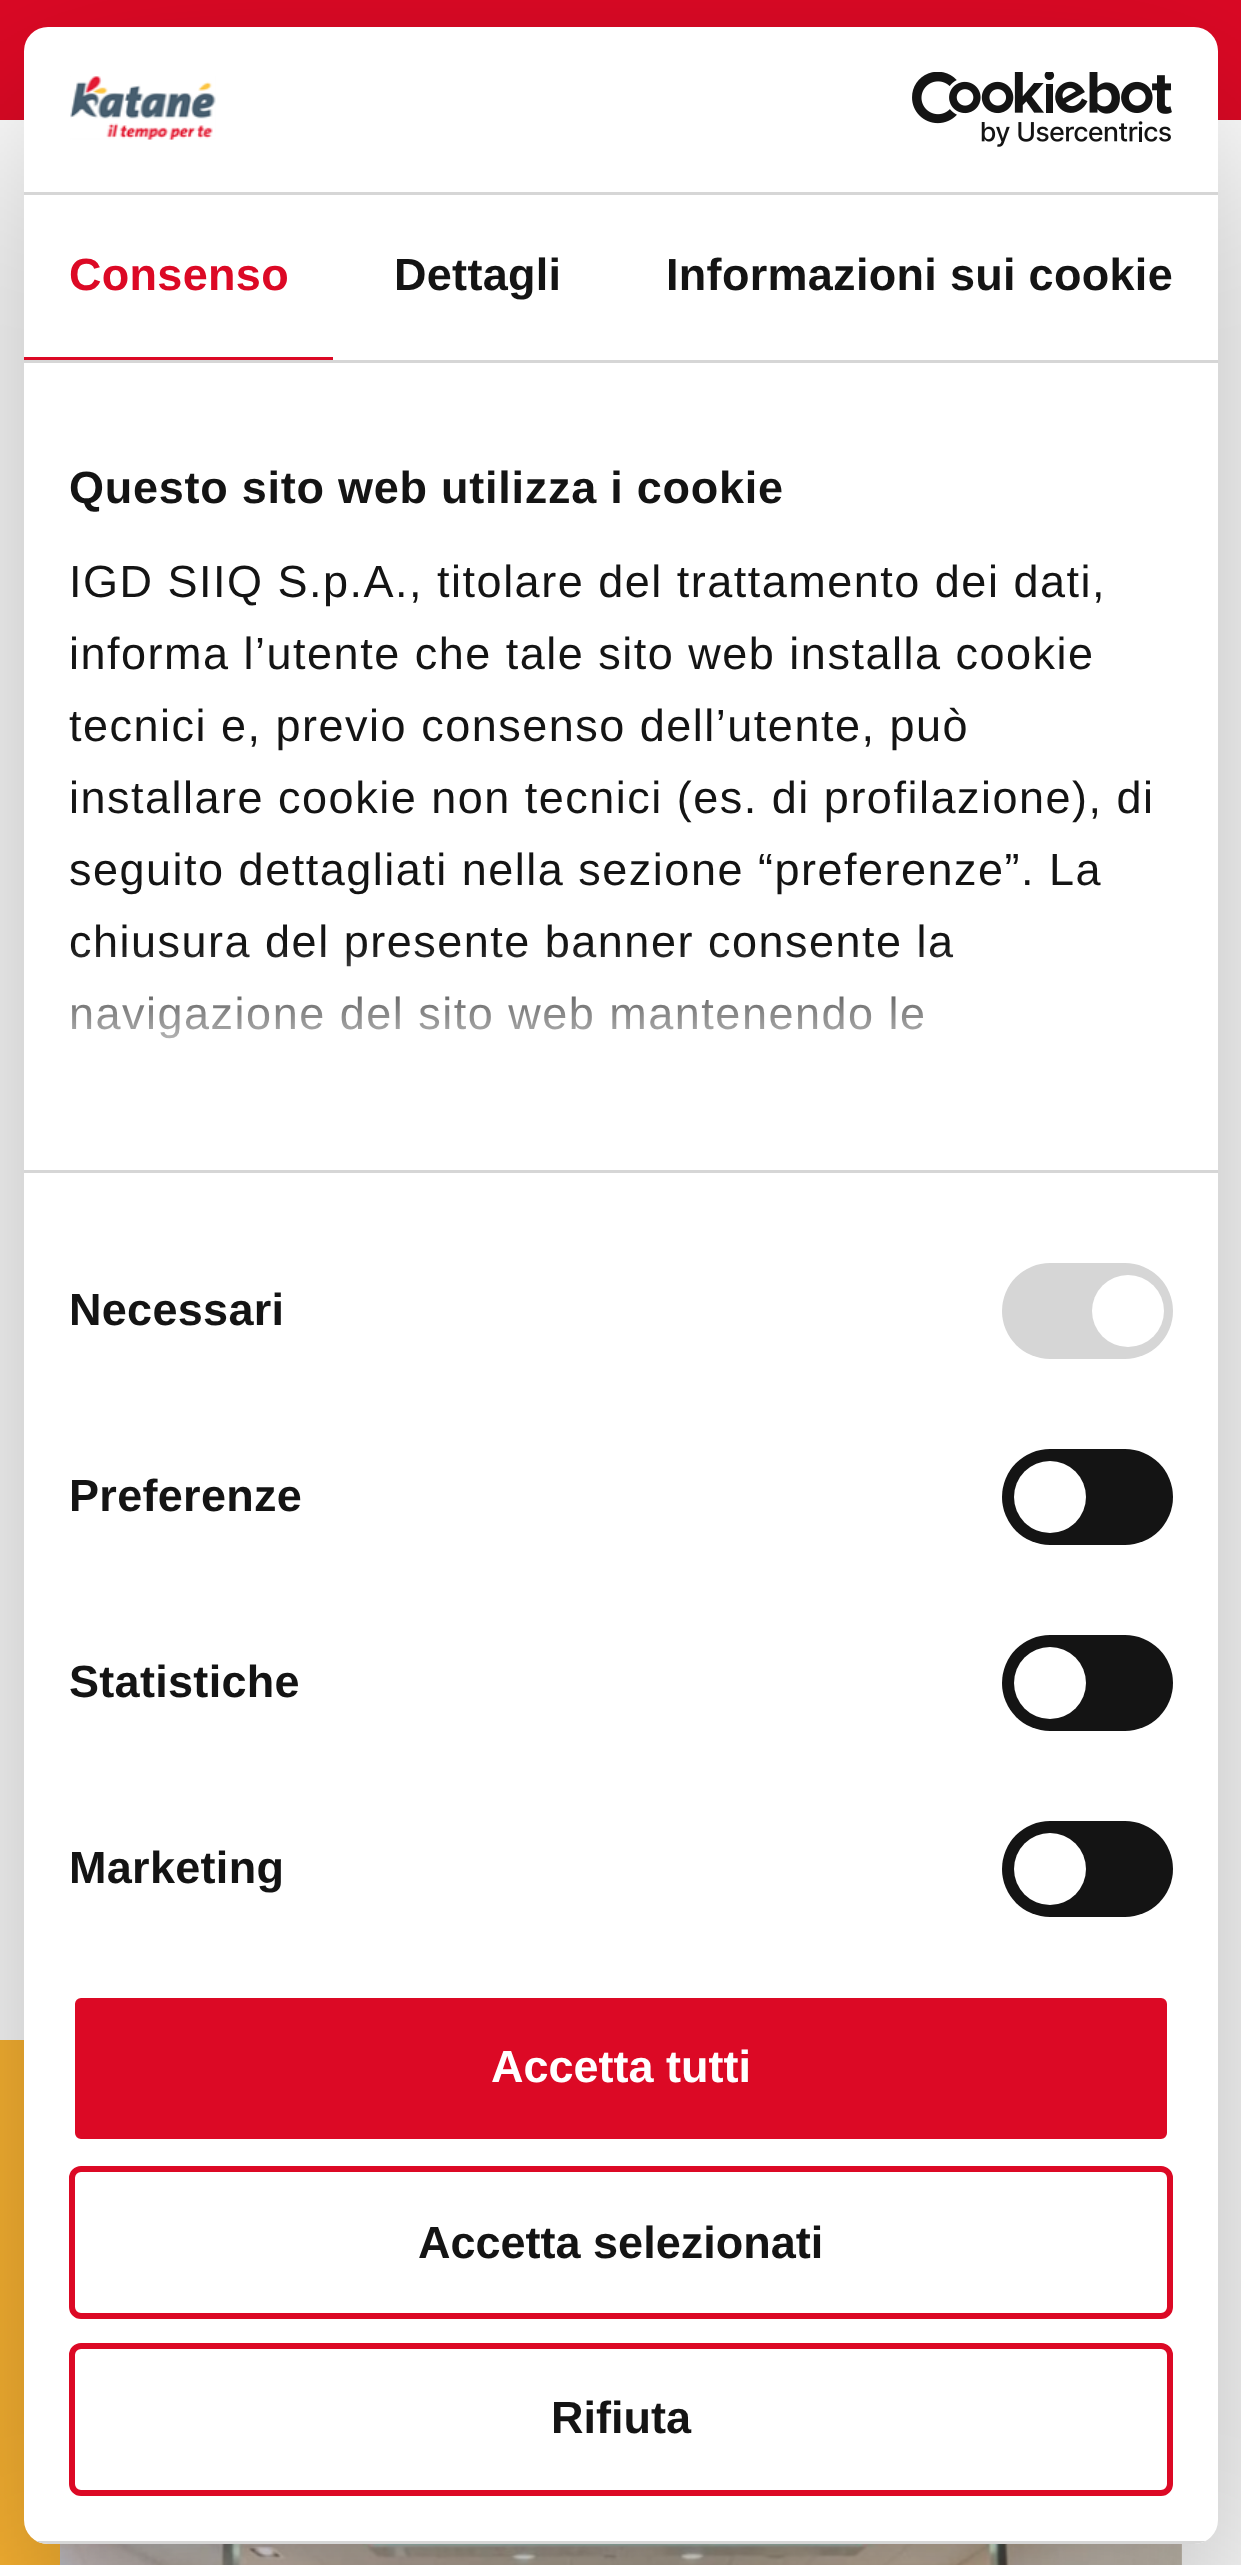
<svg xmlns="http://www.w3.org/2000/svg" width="1241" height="2565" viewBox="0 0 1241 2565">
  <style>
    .t1 { font: bold 45px Liberation Sans; letter-spacing: 0.3px; fill: #dc0925; }
    .t2 { font: bold 45px Liberation Sans; letter-spacing: 0.3px; fill: #141414; }
    .t3 { font: bold 45px Liberation Sans; letter-spacing: 0.75px; fill: #141414; }
    .t4 { font: 45px Liberation Sans; letter-spacing: 1.5px; fill: #141414; }
    .t5 { font: bold 45px Liberation Sans; fill: #fff; }
    .t6 { font: bold 45px Liberation Sans; fill: #141414; }
  </style>
  <defs>
    <linearGradient id="g1" gradientUnits="userSpaceOnUse" x1="602" y1="1169" x2="602" y2="944"><stop offset="0" stop-color="#fff"/><stop offset="0.5" stop-color="#fff" stop-opacity="0.8"/><stop offset="1" stop-color="#fff" stop-opacity="0"/></linearGradient>
    <clipPath id="clip1"><rect x="24" y="27" width="1194" height="2517" rx="24"/></clipPath>
  </defs>
  <rect width="100%" height="100%" fill="#fff"/>
  <rect x="0" y="0" width="1241" height="120" fill="#dc0925"/>
  <rect x="0" y="2040" width="60" height="525" fill="#ffb733"/>
  <image x="60" y="2544" width="1122" height="21" href="images/3.png"/>
  <rect x="24" y="123" width="1194" height="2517" rx="24" fill="#0000004d" filter="blur(102px)"/>
  <rect x="24" y="27" width="1194" height="2517" rx="24" fill="#fff"/>
  <rect x="24" y="192" width="1194" height="3" fill="#d6d6d6"/>
  <image x="70" y="76" width="146" height="64" href="images/1.png"/>
  <image x="912" y="72" width="260" height="75" href="images/2.png"/>
  <rect x="24" y="360" width="1194" height="3" fill="#d6d6d6"/>
  <rect x="24" y="357" width="309" height="3" fill="#dc0925"/>
  <text x="69" y="290" class="t1">Consenso</text>
  <text x="394" y="290" class="t2">Dettagli</text>
  <text x="666" y="290" class="t2">Informazioni sui cookie</text>
  <rect x="24" y="1170" width="1194" height="3" fill="#d6d6d6"/>
  <text x="69" y="503" class="t3">Questo sito web utilizza i cookie</text>
  <text x="69" y="597" class="t4">IGD SIIQ S.p.A., titolare del trattamento dei dati,</text>
  <text x="69" y="669" class="t4">informa l’utente che tale sito web installa cookie</text>
  <text x="69" y="741" class="t4">tecnici e, previo consenso dell’utente, può</text>
  <text x="69" y="813" class="t4">installare cookie non tecnici (es. di profilazione), di</text>
  <text x="69" y="885" class="t4">seguito dettagliati nella sezione “preferenze”. La</text>
  <text x="69" y="957" class="t4">chiusura del presente banner consente la</text>
  <text x="69" y="1029" class="t4">navigazione del sito web mantenendo le</text>
  <rect x="71" y="947" width="882" height="92" fill="url(#g1)"/>
  <text x="69" y="1325" class="t2">Necessari</text>
  <rect x="1002" y="1263" width="171" height="96" rx="48" fill="#d6d6d6"/>
  <circle cx="1128" cy="1311" r="36" fill="#fff"/>
  <text x="69" y="1511" class="t2">Preferenze</text>
  <rect x="1002" y="1449" width="171" height="96" rx="48" fill="#141414"/>
  <circle cx="1050" cy="1497" r="36" fill="#fff"/>
  <text x="69" y="1697" class="t2">Statistiche</text>
  <rect x="1002" y="1635" width="171" height="96" rx="48" fill="#141414"/>
  <circle cx="1050" cy="1683" r="36" fill="#fff"/>
  <text x="69" y="1883" class="t2">Marketing</text>
  <rect x="1002" y="1821" width="171" height="96" rx="48" fill="#141414"/>
  <circle cx="1050" cy="1869" r="36" fill="#fff"/>
  <g clip-path="url(#clip1)">
    <rect x="36" y="2541" width="1170" height="3" fill="#d6d6d6"/>
  </g>
  <rect x="72" y="1995" width="1098" height="147" rx="9" fill="#dc0925" stroke="#fff" stroke-width="6"/>
  <text x="491" y="2082" class="t5">Accetta tutti</text>
  <rect x="72" y="2169" width="1098" height="147" rx="9" fill="none" stroke="#dc0925" stroke-width="6"/>
  <text x="418" y="2258" class="t6">Accetta selezionati</text>
  <rect x="72" y="2346" width="1098" height="147" rx="9" fill="none" stroke="#dc0925" stroke-width="6"/>
  <text x="551" y="2433" class="t6">Rifiuta</text>
</svg>
